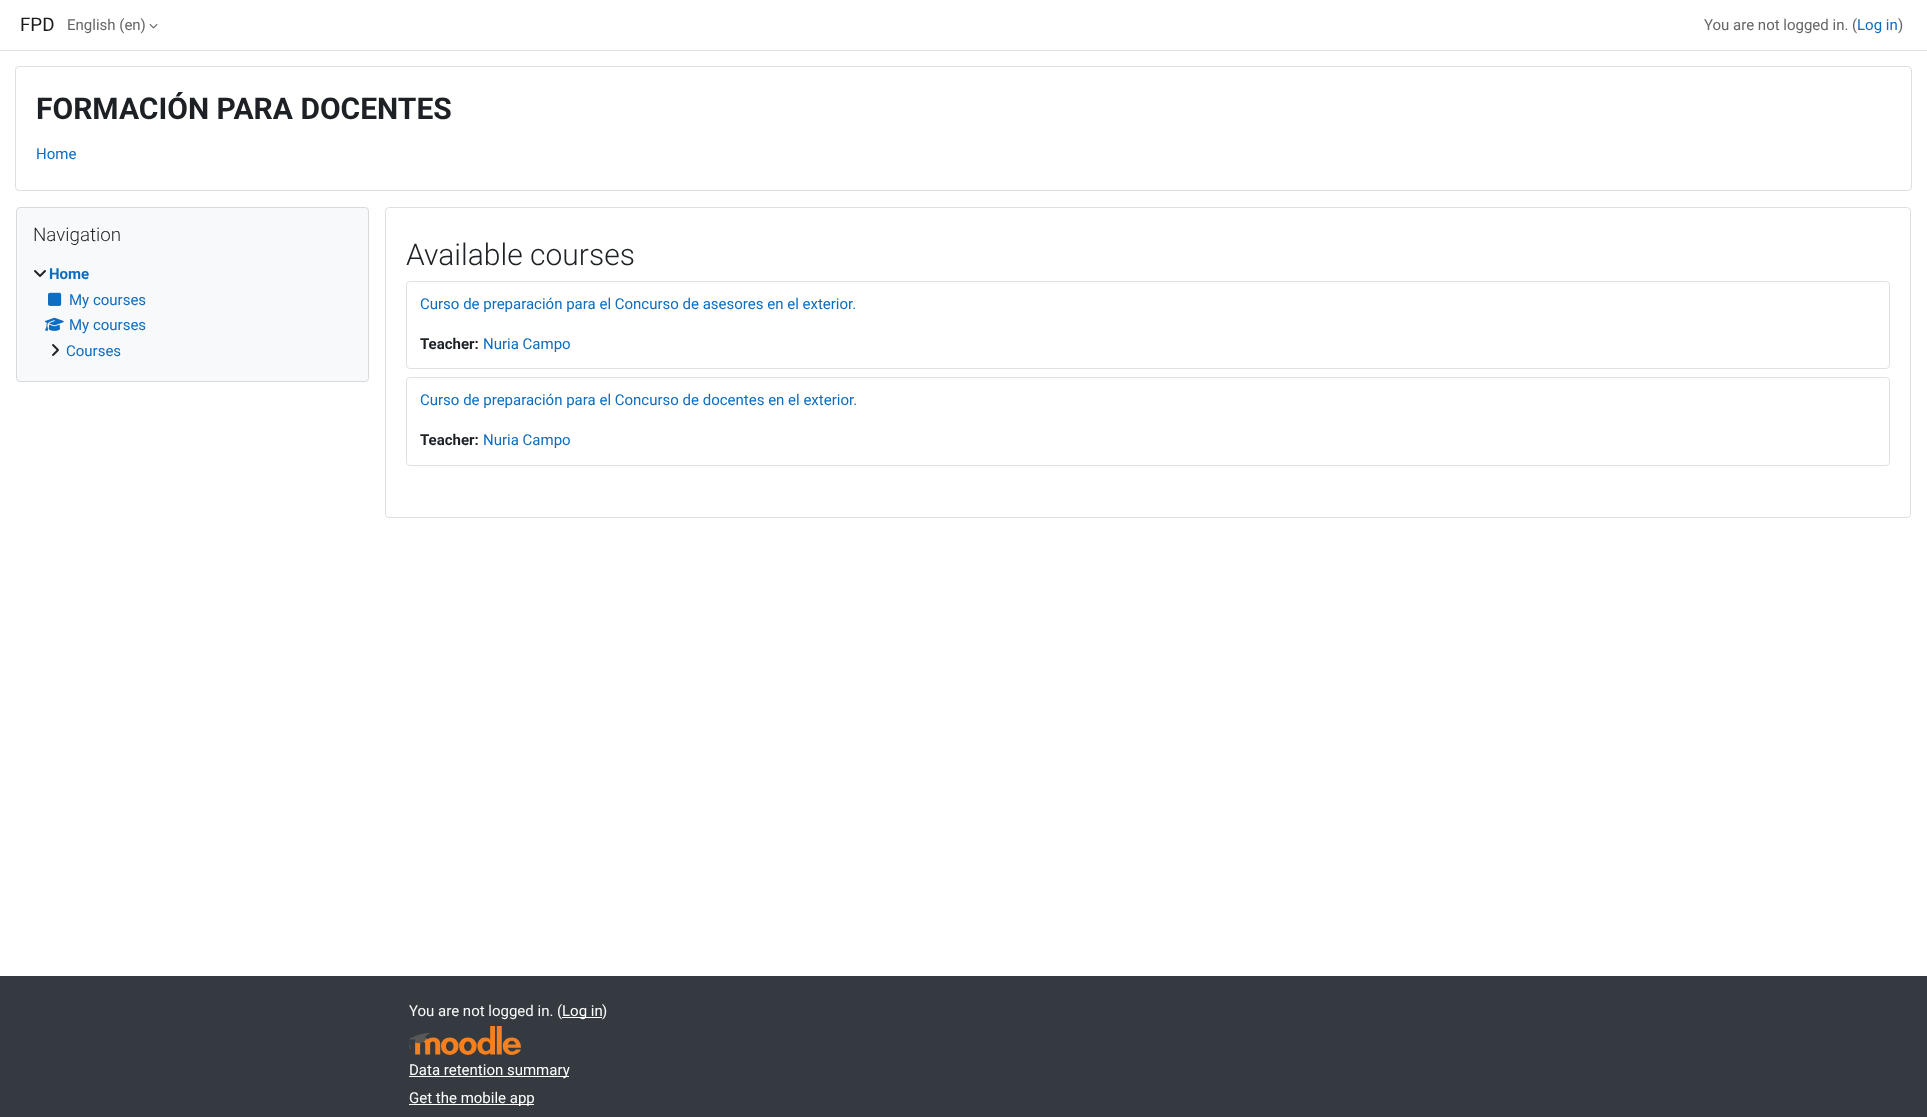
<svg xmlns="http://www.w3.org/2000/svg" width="1927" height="1117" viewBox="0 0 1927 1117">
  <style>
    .t1 { font: 18.75px Roboto; fill: #1a1a1a; }
    .t2 { font: 15px Roboto; fill: #666; }
    .t3 { font: 15px Roboto; fill: #0f6cbf; }
    .t4 { font: bold 30px Roboto; fill: #1d2125; }
    .t5 { font: 300 18.75px Roboto; fill: #1d2125; }
    .t6 { font: bold 15px Roboto; fill: #0f6cbf; }
    .t7 { font: 300 30px Roboto; fill: #1d2125; }
    .t8 { font: bold 15px Roboto; fill: #1d2125; }
    .t9 { font: 15px Roboto; fill: #f8f9fa; }
    .t10 { font: 15px Roboto; fill: #fff; }
  </style>
  <rect width="100%" height="100%" fill="#fff"/>
  <rect x="0" y="50" width="1927" height="1" fill="#dee2e6"/>
  <text x="20" y="31" class="t1">FPD</text>
  <text x="67" y="30" class="t2">English (en)</text>
  <image x="149" y="24" width="9" height="5" href="images/1.png"/>
  <text x="1704" y="30" class="t2">You are not logged in. (</text>
  <text x="1857" y="30" class="t3">Log in</text>
  <text x="1898" y="30" class="t2">)</text>
  <rect x="15.5" y="66.5" width="1896" height="124" rx="3.5" fill="none" stroke="#dfdfdf"/>
  <text x="36" y="119" class="t4">FORMACIÓN PARA DOCENTES</text>
  <text x="36" y="159" class="t3">Home</text>
  <rect x="16.5" y="207.5" width="352" height="174" rx="3.5" fill="#f8f9fa" stroke="#d9dadb"/>
  <text x="33" y="241" class="t5">Navigation</text>
  <image x="34" y="270" width="12" height="7" href="images/2.png"/>
  <text x="49" y="279" class="t6">Home</text>
  <image x="48" y="292" width="14" height="14" href="images/3.png"/>
  <text x="69" y="305" class="t3">My courses</text>
  <image x="45" y="317" width="19" height="14" href="images/4.png"/>
  <text x="69" y="330" class="t3">My courses</text>
  <image x="52" y="344" width="7" height="12" href="images/5.png"/>
  <text x="66" y="356" class="t3">Courses</text>
  <rect x="385.5" y="207.5" width="1525" height="310" rx="3.5" fill="none" stroke="#dfdfdf"/>
  <text x="406" y="265" class="t7">Available courses</text>
  <rect x="406.5" y="281.5" width="1483" height="87" rx="3.5" fill="none" stroke="#dee2e6"/>
  <text x="420" y="309" class="t3">Curso de preparación para el Concurso de asesores en el exterior.</text>
  <text x="420" y="349" class="t8">Teacher:</text>
  <text x="483" y="349" class="t3">Nuria Campo</text>
  <rect x="406.5" y="377.5" width="1483" height="88" rx="3.5" fill="none" stroke="#dee2e6"/>
  <text x="420" y="405" class="t3">Curso de preparación para el Concurso de docentes en el exterior.</text>
  <text x="420" y="445" class="t8">Teacher:</text>
  <text x="483" y="445" class="t3">Nuria Campo</text>
  <rect x="0" y="976" width="1927" height="141" fill="#343a40"/>
  <text x="409" y="1016" class="t9">You are not logged in. (</text>
  <rect x="562" y="1017" width="40" height="1" fill="#fff"/>
  <text x="562" y="1016" class="t10">Log in</text>
  <text x="602" y="1016" class="t9">)</text>
  <image x="409" y="1026" width="112" height="29" href="images/6.png"/>
  <rect x="409" y="1076" width="160" height="1" fill="#fff"/>
  <text x="409" y="1075" class="t10">Data retention summary</text>
  <rect x="409" y="1104" width="125" height="1" fill="#fff"/>
  <text x="409" y="1103" class="t10">Get the mobile app</text>
</svg>
